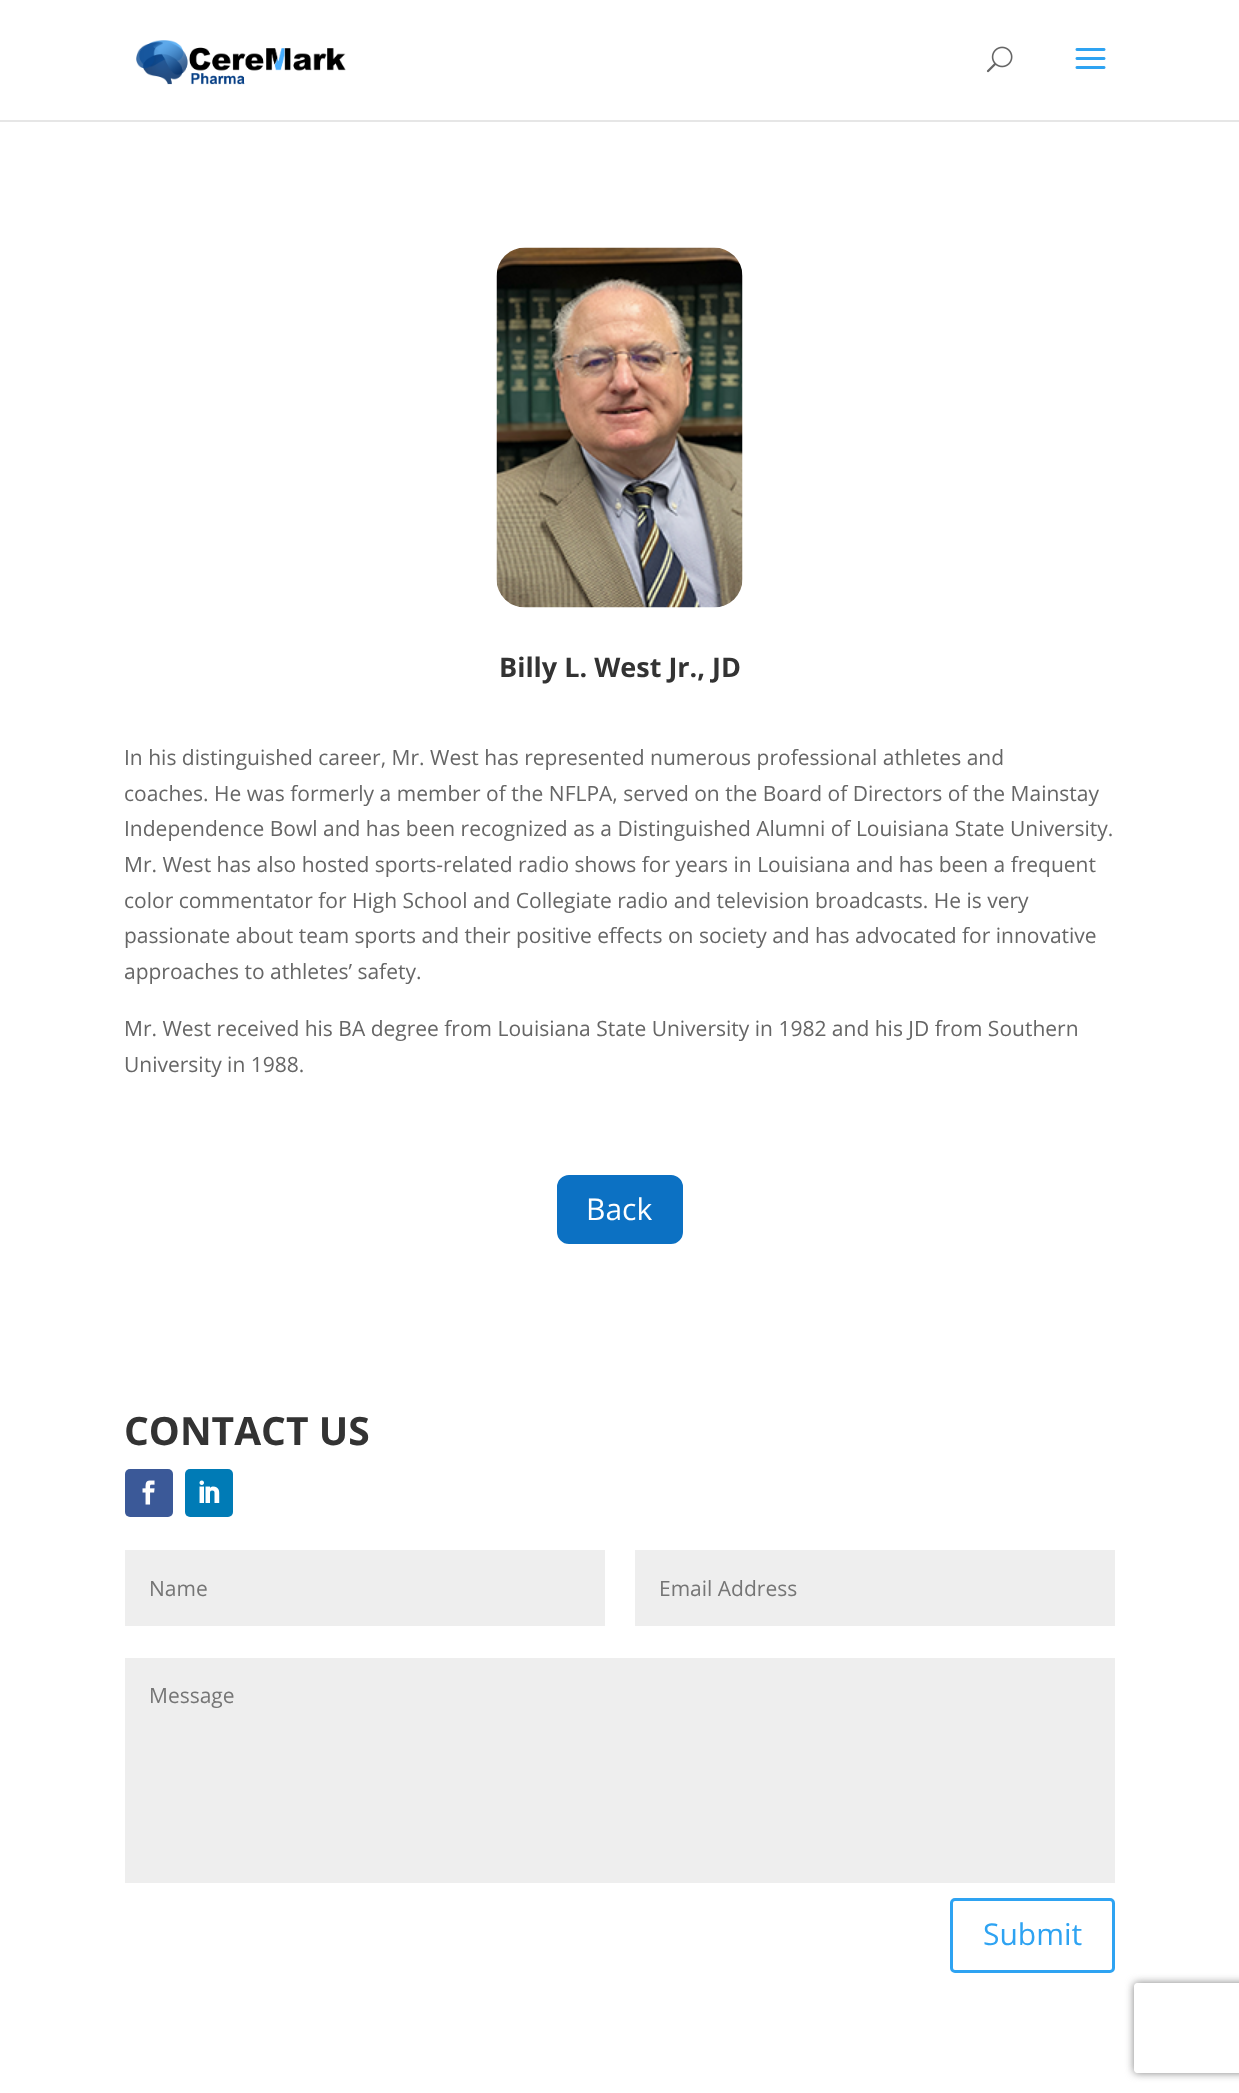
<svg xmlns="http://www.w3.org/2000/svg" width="1239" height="2093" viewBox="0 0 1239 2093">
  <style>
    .t1 { font: bold 27px Open Sans; fill: #333; }
    .t2 { font: 21px Open Sans; fill: #666; }
    .t3 { font: 30px Open Sans; fill: #fff; }
    .t4 { font: bold 39px Open Sans; fill: #333; }
    .t5 { font: 21px Open Sans; fill: #757575; }
    .t6 { font: 30px Open Sans; fill: #2ea3f2; }
  </style>
  <defs>
    <clipPath id="clip1"><path d="M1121 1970H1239V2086H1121ZM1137 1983H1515C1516.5 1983 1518 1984.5 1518 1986V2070C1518 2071.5 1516.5 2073 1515 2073H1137C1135.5 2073 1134 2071.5 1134 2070V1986C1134 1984.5 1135.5 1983 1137 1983Z" clip-rule="evenodd"/></clipPath>
  </defs>
  <rect width="100%" height="100%" fill="#fff"/>
  <rect x="0" y="120" width="1239" height="2" fill="#e6e6e6"/>
  <image x="136" y="40" width="210" height="45" href="images/1.png"/>
  <image x="986" y="46" width="27" height="27" href="images/2.png"/>
  <image x="1075" y="48" width="31" height="21" href="images/3.png"/>
  <image x="496" y="247" width="247" height="361" href="images/4.png"/>
  <text x="499" y="677" class="t1">Billy L. West Jr., JD</text>
  <text x="124" y="765" class="t2">In his distinguished career, Mr. West has represented numerous professional athletes and</text>
  <text x="124" y="801" class="t2">coaches. He was formerly a member of the NFLPA, served on the Board of Directors of the Mainstay</text>
  <text x="124" y="836" class="t2">Independence Bowl and has been recognized as a Distinguished Alumni of Louisiana State University.</text>
  <text x="124" y="872" class="t2">Mr. West has also hosted sports-related radio shows for years in Louisiana and has been a frequent</text>
  <text x="124" y="908" class="t2">color commentator for High School and Collegiate radio and television broadcasts. He is very</text>
  <text x="124" y="943" class="t2">passionate about team sports and their positive effects on society and has advocated for innovative</text>
  <text x="124" y="979" class="t2">approaches to athletes’ safety.</text>
  <text x="124" y="1036" class="t2">Mr. West received his BA degree from Louisiana State University in 1982 and his JD from Southern</text>
  <text x="124" y="1072" class="t2">University in 1988.</text>
  <rect x="555.5" y="1173.5" width="129" height="72" rx="13.5" fill="#0c71c3" stroke="#fff" stroke-width="3"/>
  <text x="586" y="1220" class="t3">Back</text>
  <text x="124" y="1445" class="t4">CONTACT US</text>
  <rect x="125" y="1469" width="48" height="48" rx="5" fill="#3b5998"/>
  <image x="142" y="1480" width="13" height="25" href="images/5.png"/>
  <rect x="185" y="1469" width="48" height="48" rx="5" fill="#007bb6"/>
  <image x="199" y="1480" width="21" height="23" href="images/6.png"/>
  <rect x="125" y="1550" width="480" height="76" fill="#eee"/>
  <text x="149" y="1596" class="t5">Name</text>
  <rect x="635" y="1550" width="480" height="76" fill="#eee"/>
  <text x="659" y="1596" class="t5">Email Address</text>
  <rect x="125" y="1658" width="990" height="225" fill="#eee"/>
  <text x="149" y="1703" class="t5">Message</text>
  <rect x="951.5" y="1899.5" width="162" height="72" rx="3.5" fill="none" stroke="#2ea3f2" stroke-width="3"/>
  <text x="983" y="1945" class="t6">Submit</text>
  <g clip-path="url(#clip1)">
    <rect x="1134" y="1983" width="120" height="90" rx="3" fill="#808080" filter="blur(4px)"/>
  </g>
</svg>
